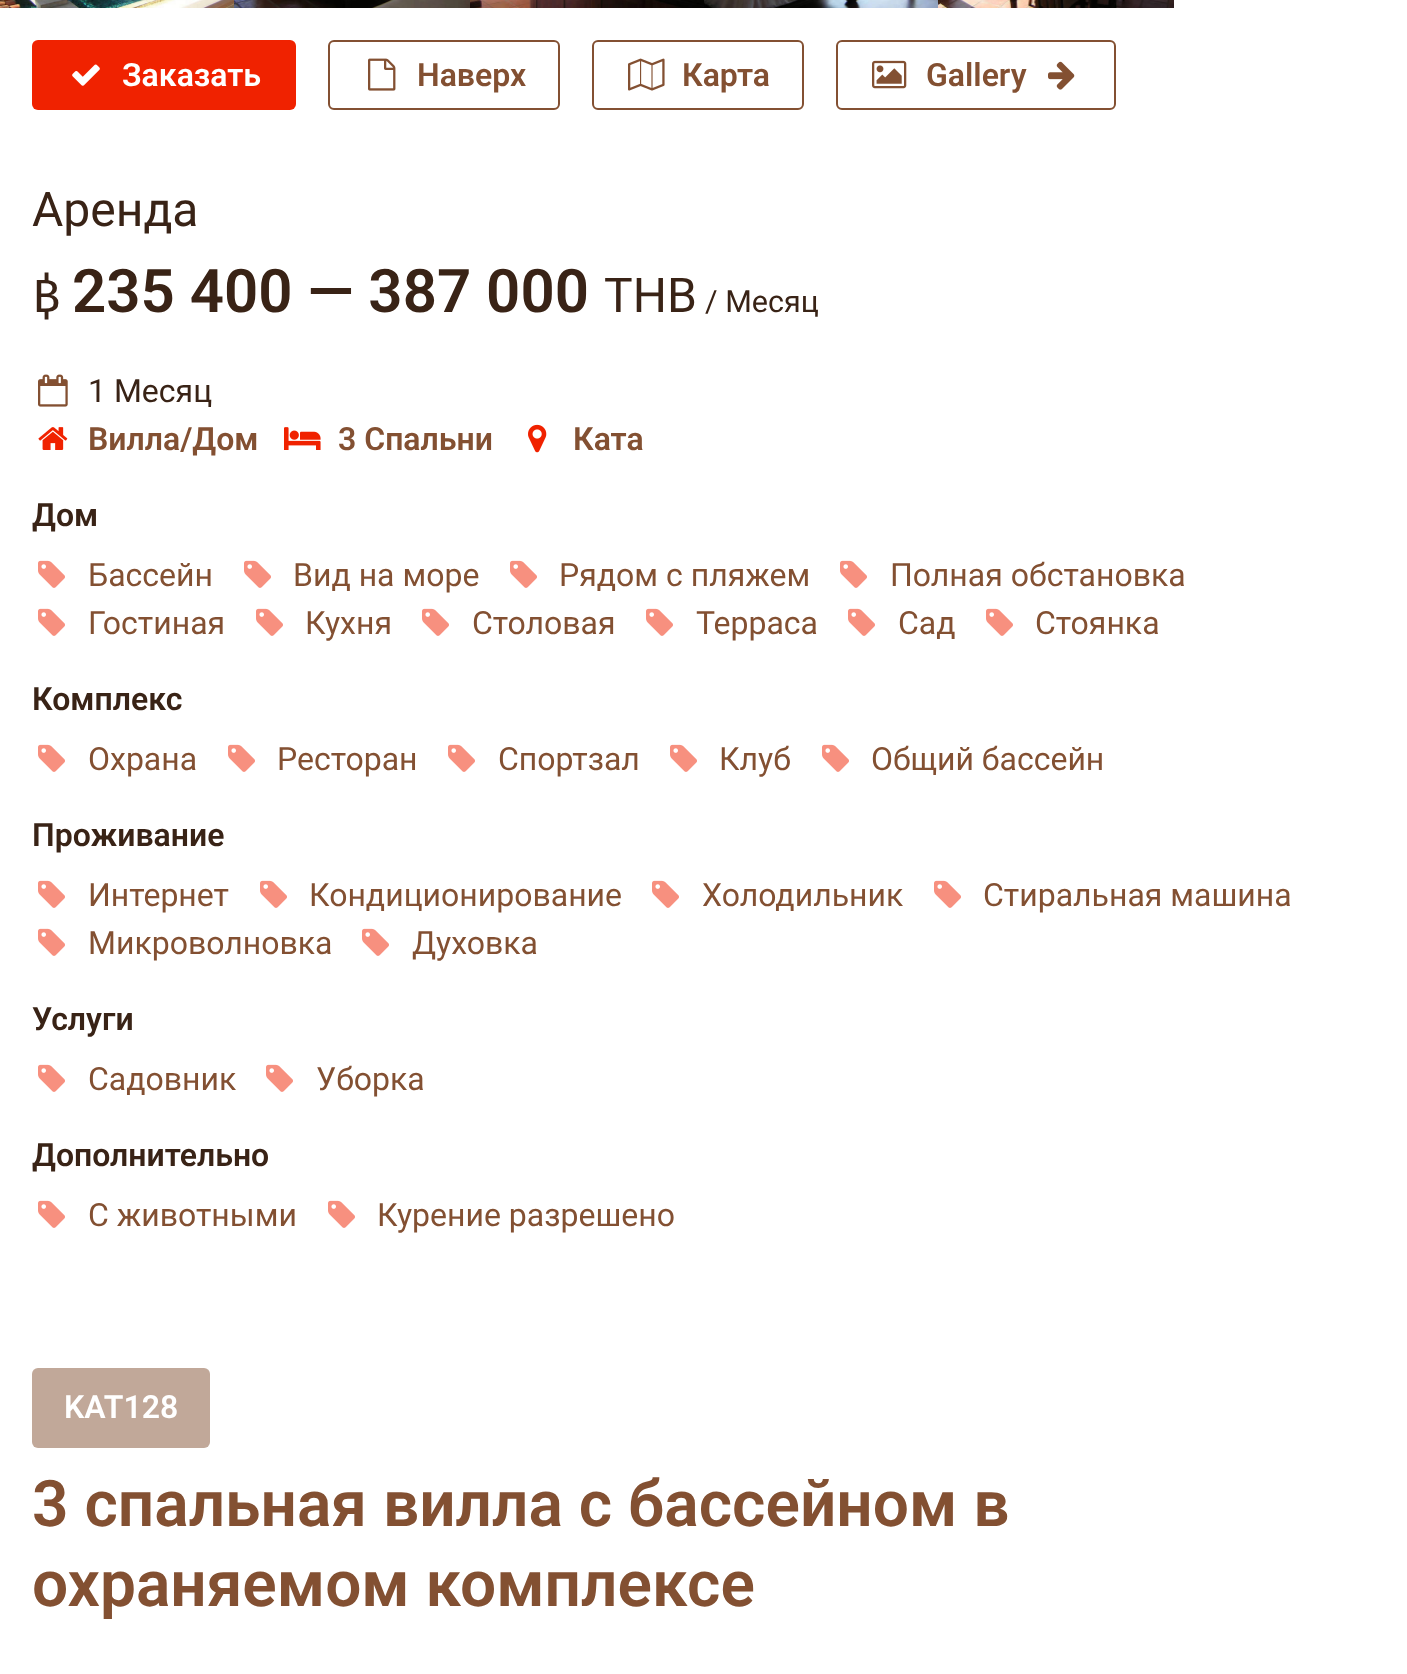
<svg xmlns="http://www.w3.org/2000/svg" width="1407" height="1674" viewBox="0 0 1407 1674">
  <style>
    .t1 { font: 600 32px Roboto; fill: #fff; }
    .t2 { font: 600 32px Roboto; fill: #835032; }
    .t3 { font: 48px Roboto; fill: #392316; }
    .t4 { font: 48px Fira Sans; fill: #392316; }
    .t5 { font: 600 60px Roboto; fill: #392316; }
    .t6 { font: 30.5px Roboto; fill: #392316; }
    .t7 { font: 32px Roboto; fill: #392316; }
    .t8 { font: 600 32px Roboto; fill: #392316; }
    .t9 { font: 32px Roboto; fill: #835032; }
    .t10 { font: 600 64px Roboto; fill: #835032; }
  </style>
  <rect width="100%" height="100%" fill="#fff"/>
  <image x="0" y="0" width="234" height="8" href="images/1.png"/>
  <image x="234" y="0" width="236" height="8" href="images/2.png"/>
  <image x="470" y="0" width="234" height="8" href="images/3.png"/>
  <image x="704" y="0" width="234" height="8" href="images/4.png"/>
  <image x="938" y="0" width="236" height="8" href="images/5.png"/>
  <rect x="32" y="40" width="264" height="70" rx="6" fill="#f02200"/>
  <image x="72" y="64" width="28" height="22" href="images/6.png"/>
  <text x="122" y="86" class="t1">Заказать</text>
  <rect x="329" y="41" width="230" height="68" rx="5" fill="none" stroke="#835032" stroke-width="2"/>
  <image x="368" y="58" width="28" height="33" href="images/7.png"/>
  <text x="417" y="86" class="t2">Наверх</text>
  <rect x="593" y="41" width="210" height="68" rx="5" fill="none" stroke="#835032" stroke-width="2"/>
  <image x="628" y="58" width="37" height="33" href="images/8.png"/>
  <text x="682" y="86" class="t2">Карта</text>
  <rect x="837" y="41" width="278" height="68" rx="5" fill="none" stroke="#835032" stroke-width="2"/>
  <image x="872" y="60" width="35" height="29" href="images/9.png"/>
  <text x="926" y="86" class="t2">Gallery</text>
  <image x="1048" y="61" width="27" height="29" href="images/10.png"/>
  <text x="32" y="226" class="t3">Аренда</text>
  <text x="32" y="312" class="t4">฿</text>
  <text x="72" y="312" class="t5">235 400 — 387 000</text>
  <text x="604" y="312" class="t3">THB</text>
  <text x="705" y="312" class="t6">/ Месяц</text>
  <image x="38" y="374" width="30" height="33" href="images/11.png"/>
  <text x="88" y="402" class="t7">1 Месяц</text>
  <image x="38" y="427" width="30" height="23" href="images/12.png"/>
  <text x="88" y="450" class="t2">Вилла/Дом</text>
  <image x="284" y="427" width="37" height="23" href="images/13.png"/>
  <text x="338" y="450" class="t2">3 Спальни</text>
  <image x="528" y="424" width="19" height="29" href="images/14.png"/>
  <text x="573" y="450" class="t2">Ката</text>
  <text x="32" y="526" class="t8">Дом</text>
  <image x="38" y="560" width="27" height="28" href="images/15.png"/>
  <text x="88" y="586" class="t9">Бассейн</text>
  <image x="244" y="560" width="27" height="28" href="images/15.png"/>
  <text x="293" y="586" class="t9">Вид на море</text>
  <image x="510" y="560" width="27" height="28" href="images/15.png"/>
  <text x="559" y="586" class="t9">Рядом с пляжем</text>
  <image x="840" y="560" width="27" height="28" href="images/15.png"/>
  <text x="890" y="586" class="t9">Полная обстановка</text>
  <image x="38" y="608" width="27" height="28" href="images/15.png"/>
  <text x="88" y="634" class="t9">Гостиная</text>
  <image x="256" y="608" width="27" height="28" href="images/15.png"/>
  <text x="305" y="634" class="t9">Кухня</text>
  <image x="422" y="608" width="27" height="28" href="images/15.png"/>
  <text x="472" y="634" class="t9">Столовая</text>
  <image x="646" y="608" width="27" height="28" href="images/15.png"/>
  <text x="696" y="634" class="t9">Терраса</text>
  <image x="848" y="608" width="27" height="28" href="images/15.png"/>
  <text x="898" y="634" class="t9">Сад</text>
  <image x="986" y="608" width="27" height="28" href="images/15.png"/>
  <text x="1035" y="634" class="t9">Стоянка</text>
  <text x="32" y="710" class="t8">Комплекс</text>
  <image x="38" y="744" width="27" height="28" href="images/15.png"/>
  <text x="88" y="770" class="t9">Охрана</text>
  <image x="228" y="744" width="27" height="28" href="images/15.png"/>
  <text x="277" y="770" class="t9">Ресторан</text>
  <image x="448" y="744" width="27" height="28" href="images/15.png"/>
  <text x="498" y="770" class="t9">Спортзал</text>
  <image x="670" y="744" width="27" height="28" href="images/15.png"/>
  <text x="719" y="770" class="t9">Клуб</text>
  <image x="822" y="744" width="27" height="28" href="images/15.png"/>
  <text x="871" y="770" class="t9">Общий бассейн</text>
  <text x="32" y="846" class="t8">Проживание</text>
  <image x="38" y="880" width="27" height="28" href="images/15.png"/>
  <text x="88" y="906" class="t9">Интернет</text>
  <image x="260" y="880" width="27" height="28" href="images/15.png"/>
  <text x="309" y="906" class="t9">Кондиционирование</text>
  <image x="652" y="880" width="27" height="28" href="images/15.png"/>
  <text x="702" y="906" class="t9">Холодильник</text>
  <image x="934" y="880" width="27" height="28" href="images/15.png"/>
  <text x="983" y="906" class="t9">Стиральная машина</text>
  <image x="38" y="928" width="27" height="28" href="images/15.png"/>
  <text x="88" y="954" class="t9">Микроволновка</text>
  <image x="362" y="928" width="27" height="28" href="images/15.png"/>
  <text x="412" y="954" class="t9">Духовка</text>
  <text x="32" y="1030" class="t8">Услуги</text>
  <image x="38" y="1064" width="27" height="28" href="images/15.png"/>
  <text x="88" y="1090" class="t9">Садовник</text>
  <image x="266" y="1064" width="27" height="28" href="images/15.png"/>
  <text x="316" y="1090" class="t9">Уборка</text>
  <text x="32" y="1166" class="t8">Дополнительно</text>
  <image x="38" y="1200" width="27" height="28" href="images/15.png"/>
  <text x="88" y="1226" class="t9">С животными</text>
  <image x="328" y="1200" width="27" height="28" href="images/15.png"/>
  <text x="377" y="1226" class="t9">Курение разрешено</text>
  <rect x="32" y="1368" width="178" height="80" rx="6" fill="#c1a899"/>
  <text x="64" y="1418" class="t1">KAT128</text>
  <text x="32" y="1526" class="t10">3 спальная вилла с бассейном в</text>
  <text x="32" y="1606" class="t10">охраняемом комплексе</text>
</svg>
